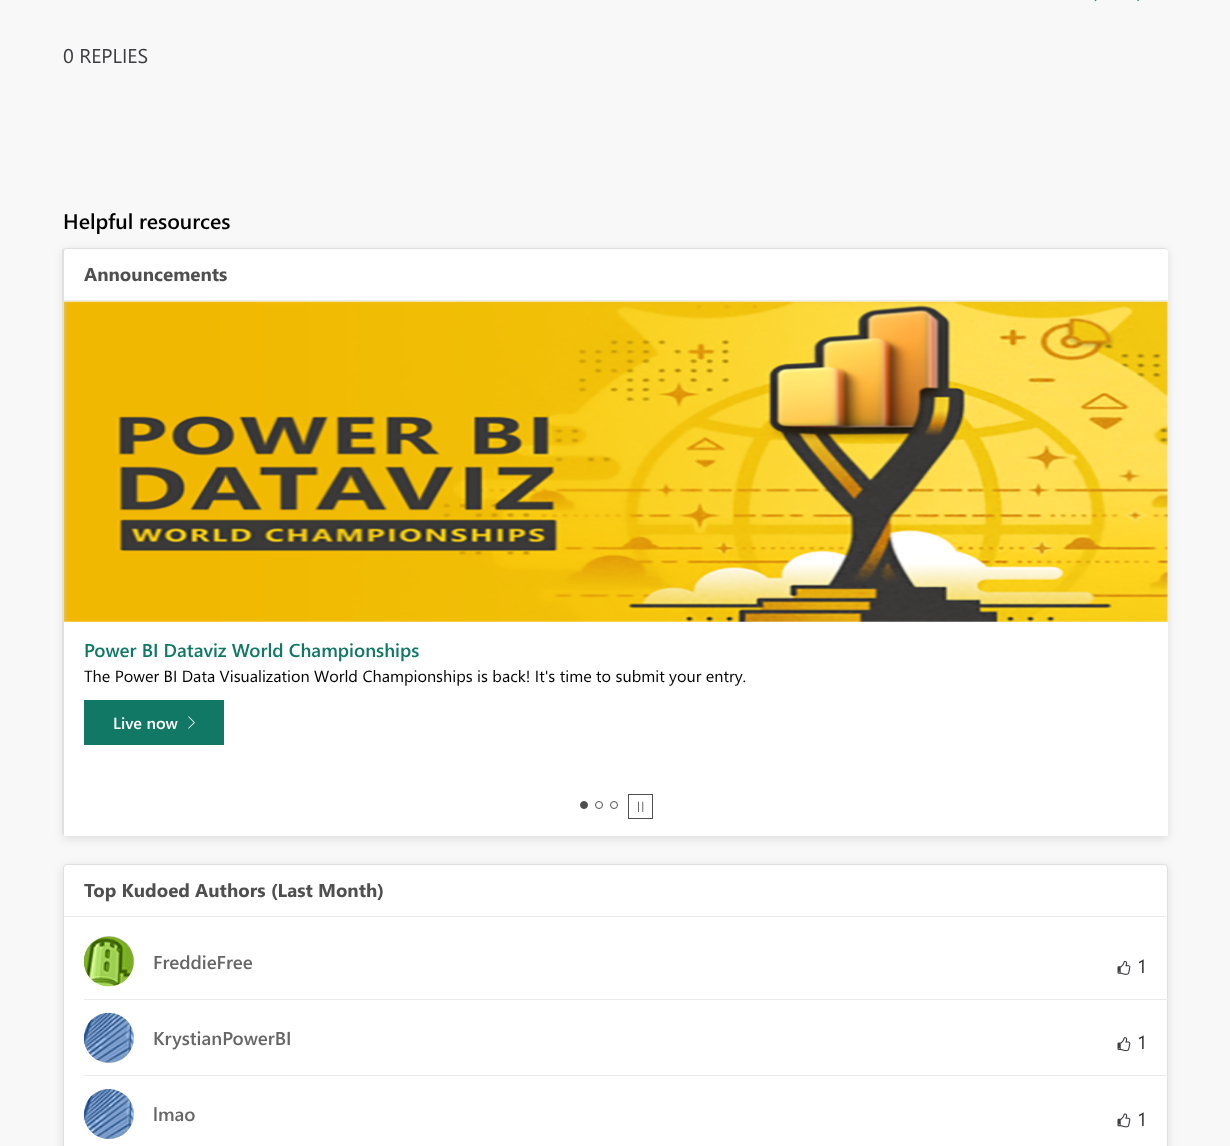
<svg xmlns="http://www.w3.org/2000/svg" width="1230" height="1146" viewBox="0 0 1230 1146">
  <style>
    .t1 { font: 20px Segoe UI; fill: #3c3c41; }
    .t2 { font: 600 21.25px Segoe UI; fill: #000; }
    .t3 { font: bold 18.75px Segoe UI; fill: #4f4f4f; }
    .t4 { font: 600 18.75px Segoe UI; fill: #117865; }
    .t5 { font: 16.25px Segoe UI; fill: #000; }
    .t6 { font: 600 16.25px Segoe UI; fill: #fff; }
    .t7 { font: 600 18.75px Segoe UI; fill: #666; }
    .t8 { font: 18.75px Segoe UI; fill: #323130; }
  </style>
  <rect width="100%" height="100%" fill="#f8f8f8"/>
  <image x="1094" y="0" width="3" height="2" href="images/1.png"/>
  <image x="1137" y="0" width="3" height="2" href="images/2.png"/>
  <text x="63" y="63" class="t1">0 REPLIES</text>
  <text x="63" y="229" class="t2">Helpful resources</text>
  <rect x="63" y="250" width="1105" height="589" rx="4" fill="#0000001a" filter="blur(5px)"/>
  <rect x="63" y="248" width="1105" height="588" rx="4" fill="#fff"/>
  <path d="M66 248H1164C1166 248 1168 249 1168 251V832C1168 835 1166 836 1164 836H66C64 836 62 835 62 832V251C62 249 64 248 66 248ZM66 249H1164C1166 249 1168 250 1168 251V832C1168 835 1166 836 1164 836H66C65 836 64 835 64 832V251C64 250 65 249 66 249Z" fill="#e0e0e0" fill-rule="evenodd"/>
  <path d="M68 249H1164C1166 249 1168 251 1168 253V301H64V253C64 251 66 249 68 249Z" fill="#fff"/>
  <rect x="64" y="300" width="1104" height="1" fill="#eaeaea"/>
  <text x="84" y="281" class="t3">Announcements</text>
  <rect x="64" y="833" width="1104" height="3" fill="#fff"/>
  <image x="64" y="301" width="1104" height="321" href="images/3.png"/>
  <text x="84" y="657" class="t4">Power BI Dataviz World Championships</text>
  <text x="84" y="682" class="t5">The Power BI Data Visualization World Championships is back! It's time to submit your entry.</text>
  <rect x="84" y="700" width="140" height="45" fill="#117865"/>
  <text x="113" y="729" class="t6">Live now</text>
  <image x="188" y="716" width="7" height="13" href="images/4.png"/>
  <circle cx="584" cy="805" r="3.5" fill="#4f4f4f" stroke="#4f4f4f"/>
  <circle cx="599" cy="805" r="3.5" fill="none" stroke="#4f4f4f"/>
  <circle cx="614" cy="805" r="3.5" fill="none" stroke="#4f4f4f"/>
  <rect x="628.5" y="794.5" width="24" height="24" fill="none" stroke="#4f4f4f"/>
  <image x="638" y="801" width="6" height="12" href="images/5.png"/>
  <rect x="63" y="866" width="1105" height="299" rx="4" fill="#0000001a" filter="blur(5px)"/>
  <rect x="63.5" y="864.5" width="1104" height="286" rx="3.5" fill="#fff" stroke="#e0e0e0"/>
  <rect x="64" y="916" width="1102" height="1" fill="#eaeaea"/>
  <text x="84" y="897" class="t3">Top Kudoed Authors (Last Month)</text>
  <rect x="84" y="999" width="1084" height="1" fill="#eaeaea"/>
  <rect x="84" y="936" width="50" height="50" rx="25" fill="#c4c4c4" filter="blur(0.5px)"/>
  <image x="83" y="936" width="51" height="51" href="images/6.png"/>
  <text x="153" y="969" class="t7">FreddieFree</text>
  <image x="1117" y="960" width="14" height="15" href="images/7.png"/>
  <text x="1137" y="973" class="t8">1</text>
  <rect x="84" y="1075" width="1084" height="1" fill="#eaeaea"/>
  <rect x="84" y="1013" width="50" height="50" rx="25" fill="#c4c4c4" filter="blur(0.5px)"/>
  <image x="83" y="1012" width="51" height="51" href="images/8.png"/>
  <text x="153" y="1045" class="t7">KrystianPowerBI</text>
  <image x="1117" y="1037" width="14" height="15" href="images/9.png"/>
  <text x="1137" y="1049" class="t8">1</text>
  <rect x="84" y="1089" width="50" height="50" rx="25" fill="#c4c4c4" filter="blur(0.5px)"/>
  <image x="83" y="1089" width="51" height="50" href="images/10.png"/>
  <text x="153" y="1121" class="t7">lmao</text>
  <image x="1117" y="1113" width="14" height="15" href="images/11.png"/>
  <text x="1137" y="1126" class="t8">1</text>
</svg>
